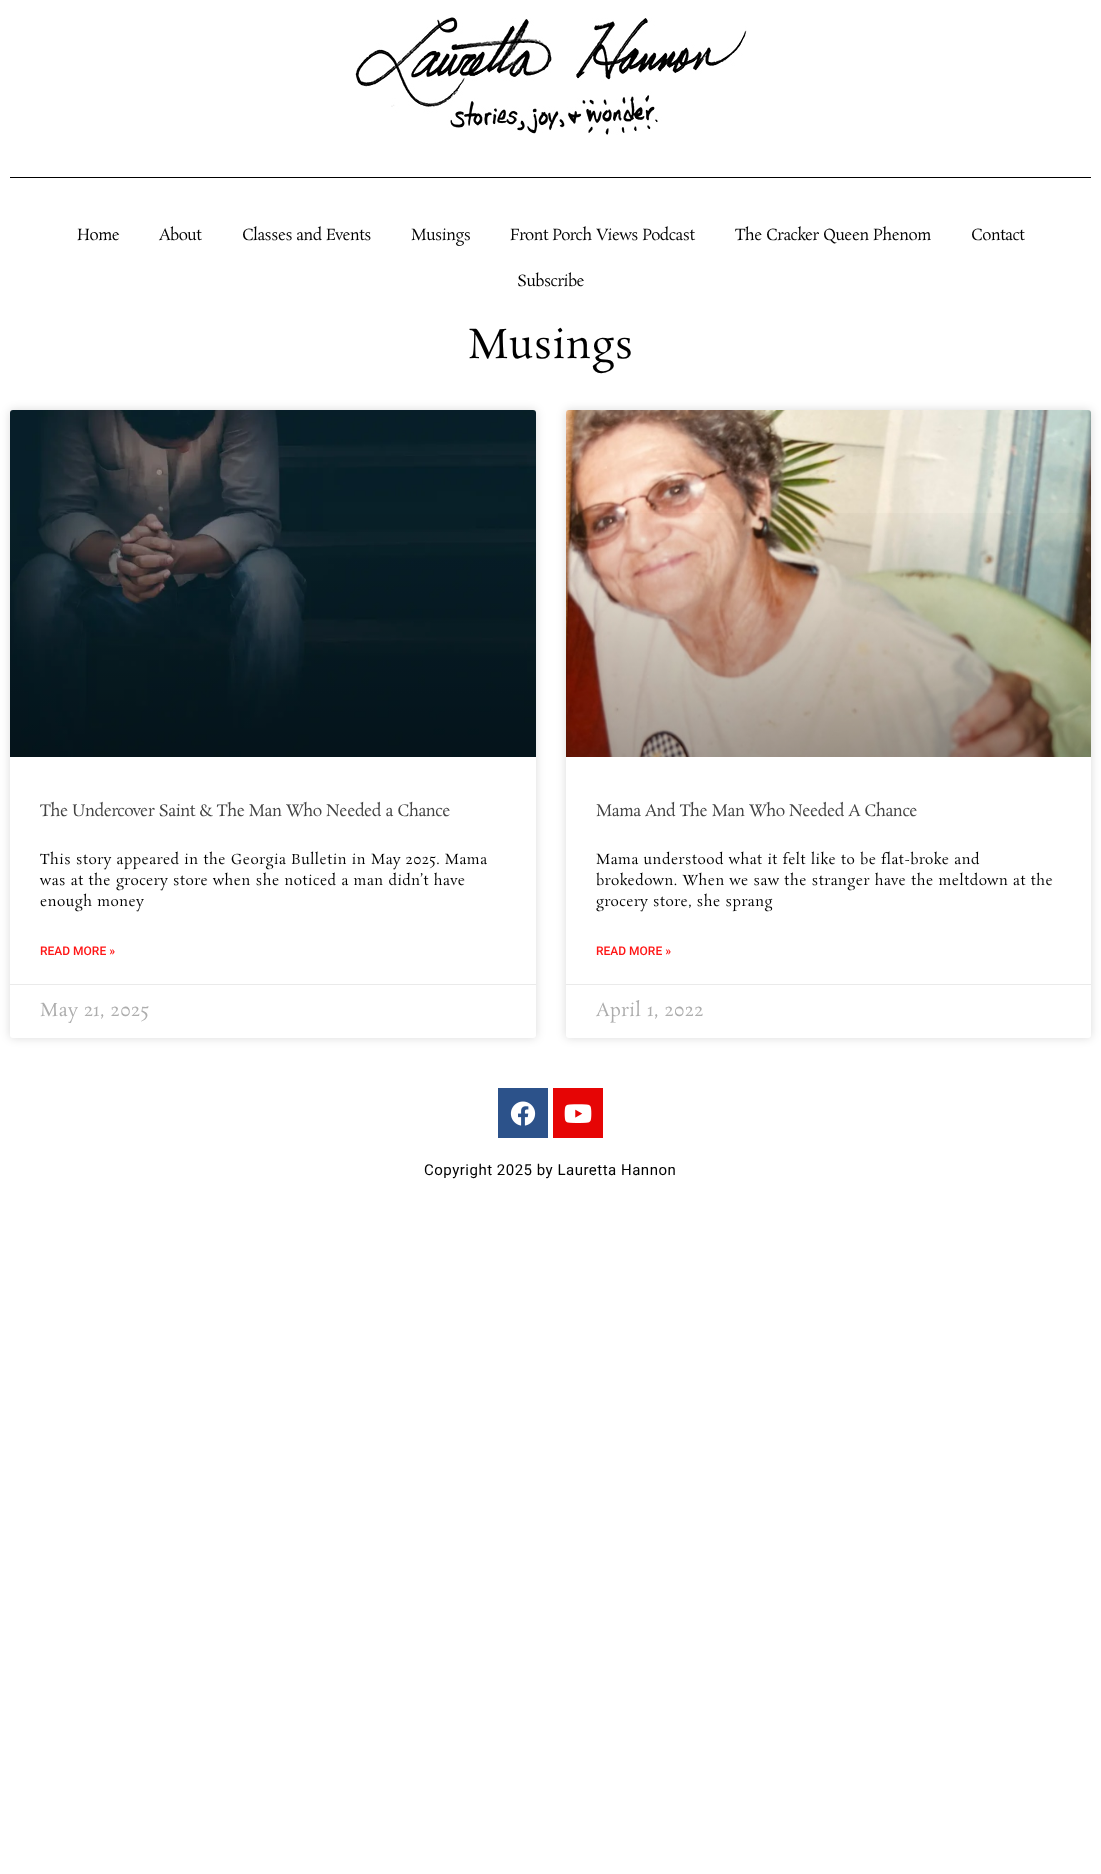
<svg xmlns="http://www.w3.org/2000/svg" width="1101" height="1874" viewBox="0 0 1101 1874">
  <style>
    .t1 { font: 15.5px Rosarivo; letter-spacing: -0.5px; fill: #000; }
    .t2 { font: 40px Rosarivo; letter-spacing: 0.5px; fill: #000; }
    .t3 { font: 16px Rosarivo; letter-spacing: -0.5px; fill: #424242; }
    .t4 { font: 14px Rosarivo; letter-spacing: 0.5px; fill: #000; }
    .t5 { font: 500 12px Roboto; fill: #ff1616; }
    .t6 { font: 18px Rosarivo; letter-spacing: 0.5px; fill: #adadad; }
    .t7 { font: 15px Roboto; letter-spacing: 0.5px; fill: #000; }
  </style>
  <defs>
    <linearGradient id="g1" gradientUnits="userSpaceOnUse" x1="273" y1="757" x2="273" y2="410"><stop offset="0" stop-color="#000" stop-opacity="0.35"/><stop offset="0.75" stop-color="#000" stop-opacity="0"/></linearGradient>
    <linearGradient id="g2" gradientUnits="userSpaceOnUse" x1="829" y1="757" x2="829" y2="410"><stop offset="0" stop-color="#000" stop-opacity="0.35"/><stop offset="0.75" stop-color="#000" stop-opacity="0"/></linearGradient>
  </defs>
  <rect width="100%" height="100%" fill="#fff"/>
  <image x="355" y="17" width="392" height="118" href="images/1.png"/>
  <rect x="10" y="177" width="1081" height="1" fill="#000"/>
  <text x="77" y="240" class="t1">Home</text>
  <text x="159" y="240" class="t1">About</text>
  <text x="242" y="240" class="t1">Classes and Events</text>
  <text x="411" y="240" class="t1">Musings</text>
  <text x="510" y="240" class="t1">Front Porch Views Podcast</text>
  <text x="735" y="240" class="t1">The Cracker Queen Phenom</text>
  <text x="971" y="240" class="t1">Contact</text>
  <text x="517" y="286" class="t1">Subscribe</text>
  <text x="468" y="358" class="t2">Musings</text>
  <rect x="10" y="410" width="526" height="628" rx="3" fill="#00000026" filter="blur(5px)"/>
  <rect x="10" y="410" width="526" height="628" rx="3" fill="#fff"/>
  <image x="10" y="410" width="526" height="347" href="images/2.png"/>
  <rect x="10" y="514" width="526" height="243" fill="url(#g1)"/>
  <text x="40" y="816" class="t3">The Undercover Saint &amp; The Man Who Needed a Chance</text>
  <text x="40" y="864" class="t4">This story appeared in the Georgia Bulletin in May 2025. Mama</text>
  <text x="40" y="885" class="t4">was at the grocery store when she noticed a man didn’t have</text>
  <text x="40" y="906" class="t4">enough money</text>
  <text x="40" y="955" class="t5">READ MORE »</text>
  <rect x="10" y="984" width="526" height="1" fill="#eaeaea"/>
  <text x="40" y="1016" class="t6">May 21, 2025</text>
  <rect x="566" y="410" width="525" height="628" rx="3" fill="#00000026" filter="blur(5px)"/>
  <rect x="566" y="410" width="525" height="628" rx="3" fill="#fff"/>
  <image x="566" y="410" width="525" height="347" href="images/3.png"/>
  <rect x="566" y="513" width="525" height="244" fill="url(#g2)"/>
  <text x="596" y="816" class="t3">Mama And The Man Who Needed A Chance</text>
  <text x="596" y="864" class="t4">Mama understood what it felt like to be flat-broke and</text>
  <text x="596" y="885" class="t4">brokedown. When we saw the stranger have the meltdown at the</text>
  <text x="596" y="906" class="t4">grocery store, she sprang</text>
  <text x="596" y="955" class="t5">READ MORE »</text>
  <rect x="566" y="984" width="525" height="1" fill="#eaeaea"/>
  <text x="596" y="1016" class="t6">April 1, 2022</text>
  <rect x="498" y="1088" width="50" height="50" fill="#2c528a"/>
  <image x="510" y="1101" width="26" height="25" href="images/4.png"/>
  <rect x="553" y="1088" width="50" height="50" fill="#e60505"/>
  <image x="564" y="1104" width="28" height="19" href="images/5.png"/>
  <text x="424" y="1175" class="t7">Copyright 2025 by Lauretta Hannon</text>
</svg>
